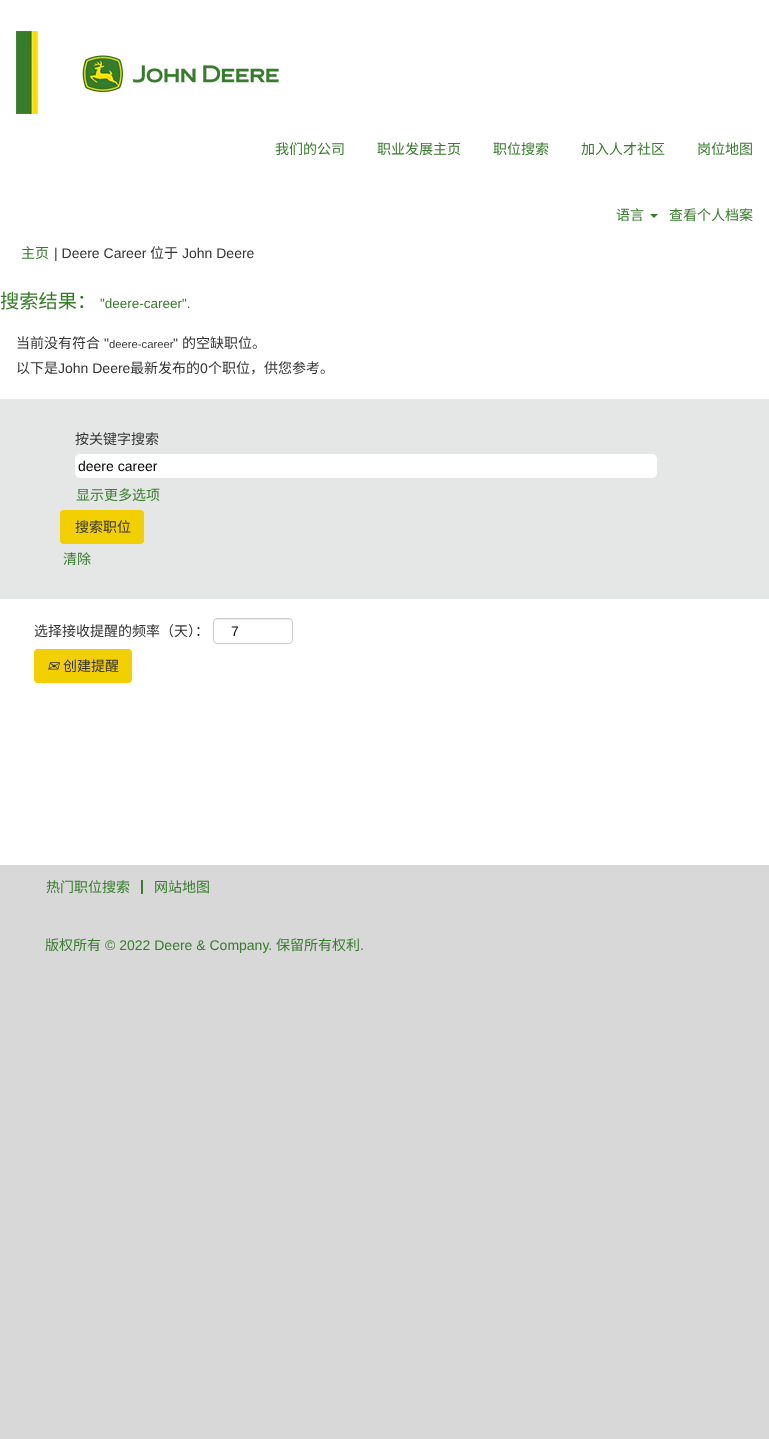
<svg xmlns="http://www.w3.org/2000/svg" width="769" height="1439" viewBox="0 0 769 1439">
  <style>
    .t1 { font: 14px Noto Sans CJK SC; fill: #367c2b; }
    .t2 { font: 14px Liberation Sans; fill: #333; }
    .t3 { font: 14px Noto Sans CJK SC; fill: #333; }
    .t4 { font: 19.25px Noto Sans CJK SC; fill: #367c2b; }
    .t5 { font: 13.5px Liberation Sans; fill: #367c2b; }
    .t6 { font: 11.25px Liberation Sans; fill: #333; }
    .t7 { font: 14px Liberation Sans; fill: #000; }
    .t8 { font: italic 14px DejaVu Sans; fill: #333; }
    .t9 { font: 14px Liberation Sans; fill: #367c2b; }
  </style>
  <rect width="100%" height="100%" fill="#d8d8d8"/>
  <rect x="0" y="0" width="769" height="865" fill="#fff"/>
  <image x="16" y="31" width="263" height="83" href="images/1.png"/>
  <text x="275" y="154" class="t1">我们的公司</text>
  <text x="377" y="154" class="t1">职业发展主页</text>
  <text x="493" y="154" class="t1">职位搜索</text>
  <text x="581" y="154" class="t1">加入人才社区</text>
  <text x="697" y="154" class="t1">岗位地图</text>
  <text x="616" y="220" class="t1">语言</text>
  <path d="M650 214H658L654 218Z" fill="#367c2b"/>
  <text x="669" y="220" class="t1">查看个人档案</text>
  <text x="21" y="258" class="t1">主页</text>
  <text x="54" y="258" class="t2">| Deere Career</text>
  <text x="150" y="258" class="t3">位于</text>
  <text x="182" y="258" class="t2">John Deere</text>
  <text x="0" y="308" class="t4">搜索结果：</text>
  <text x="100" y="308" class="t5">"deere-career".</text>
  <text x="16" y="348" class="t3">当前没有符合</text>
  <text x="104" y="348" class="t2">"</text>
  <text x="109" y="348" class="t6">deere-career</text>
  <text x="173" y="348" class="t2">"</text>
  <text x="182" y="348" class="t3">的空缺职位。</text>
  <text x="16" y="373" class="t3">以下是</text>
  <text x="58" y="373" class="t2">John Deere</text>
  <text x="130" y="373" class="t3">最新发布的</text>
  <text x="200" y="373" class="t2">0</text>
  <text x="208" y="373" class="t3">个职位，供您参考。</text>
  <rect x="0" y="399" width="769" height="200" fill="#e5e6e6"/>
  <text x="75" y="444" class="t3">按关键字搜索</text>
  <rect x="75" y="454" width="582" height="24" rx="5" fill="#fff"/>
  <text x="78" y="471" class="t7">deere career</text>
  <text x="76" y="500" class="t1">显示更多选项</text>
  <rect x="60" y="510" width="84" height="34" rx="4" fill="#f1cf00"/>
  <text x="75" y="532" class="t3">搜索职位</text>
  <text x="63" y="564" class="t1">清除</text>
  <text x="34" y="636" class="t3">选择接收提醒的频率（天）：</text>
  <path d="M217 620H289C291 620 292 621 292 623C292 616 281 619 277 619H229C225 619 214 616 214 623C214 621 215 620 217 620Z" fill="#ececec"/>
  <rect x="213.5" y="618.5" width="79" height="25" rx="3.5" fill="none" stroke="#ccc"/>
  <text x="231" y="636" class="t7">7</text>
  <rect x="34" y="649" width="98" height="34" rx="4" fill="#f1cf00"/>
  <text x="47" y="671" class="t8">✉</text>
  <text x="63" y="671" class="t3">创建提醒</text>
  <rect x="141" y="880" width="2" height="14" fill="#367c2b"/>
  <text x="46" y="892" class="t1">热门职位搜索</text>
  <text x="154" y="892" class="t1">网站地图</text>
  <text x="45" y="950" class="t1">版权所有</text>
  <text x="105" y="950" class="t9">© 2022 Deere &amp; Company.</text>
  <text x="276" y="950" class="t1">保留所有权利</text>
  <text x="360" y="950" class="t9">.</text>
</svg>
